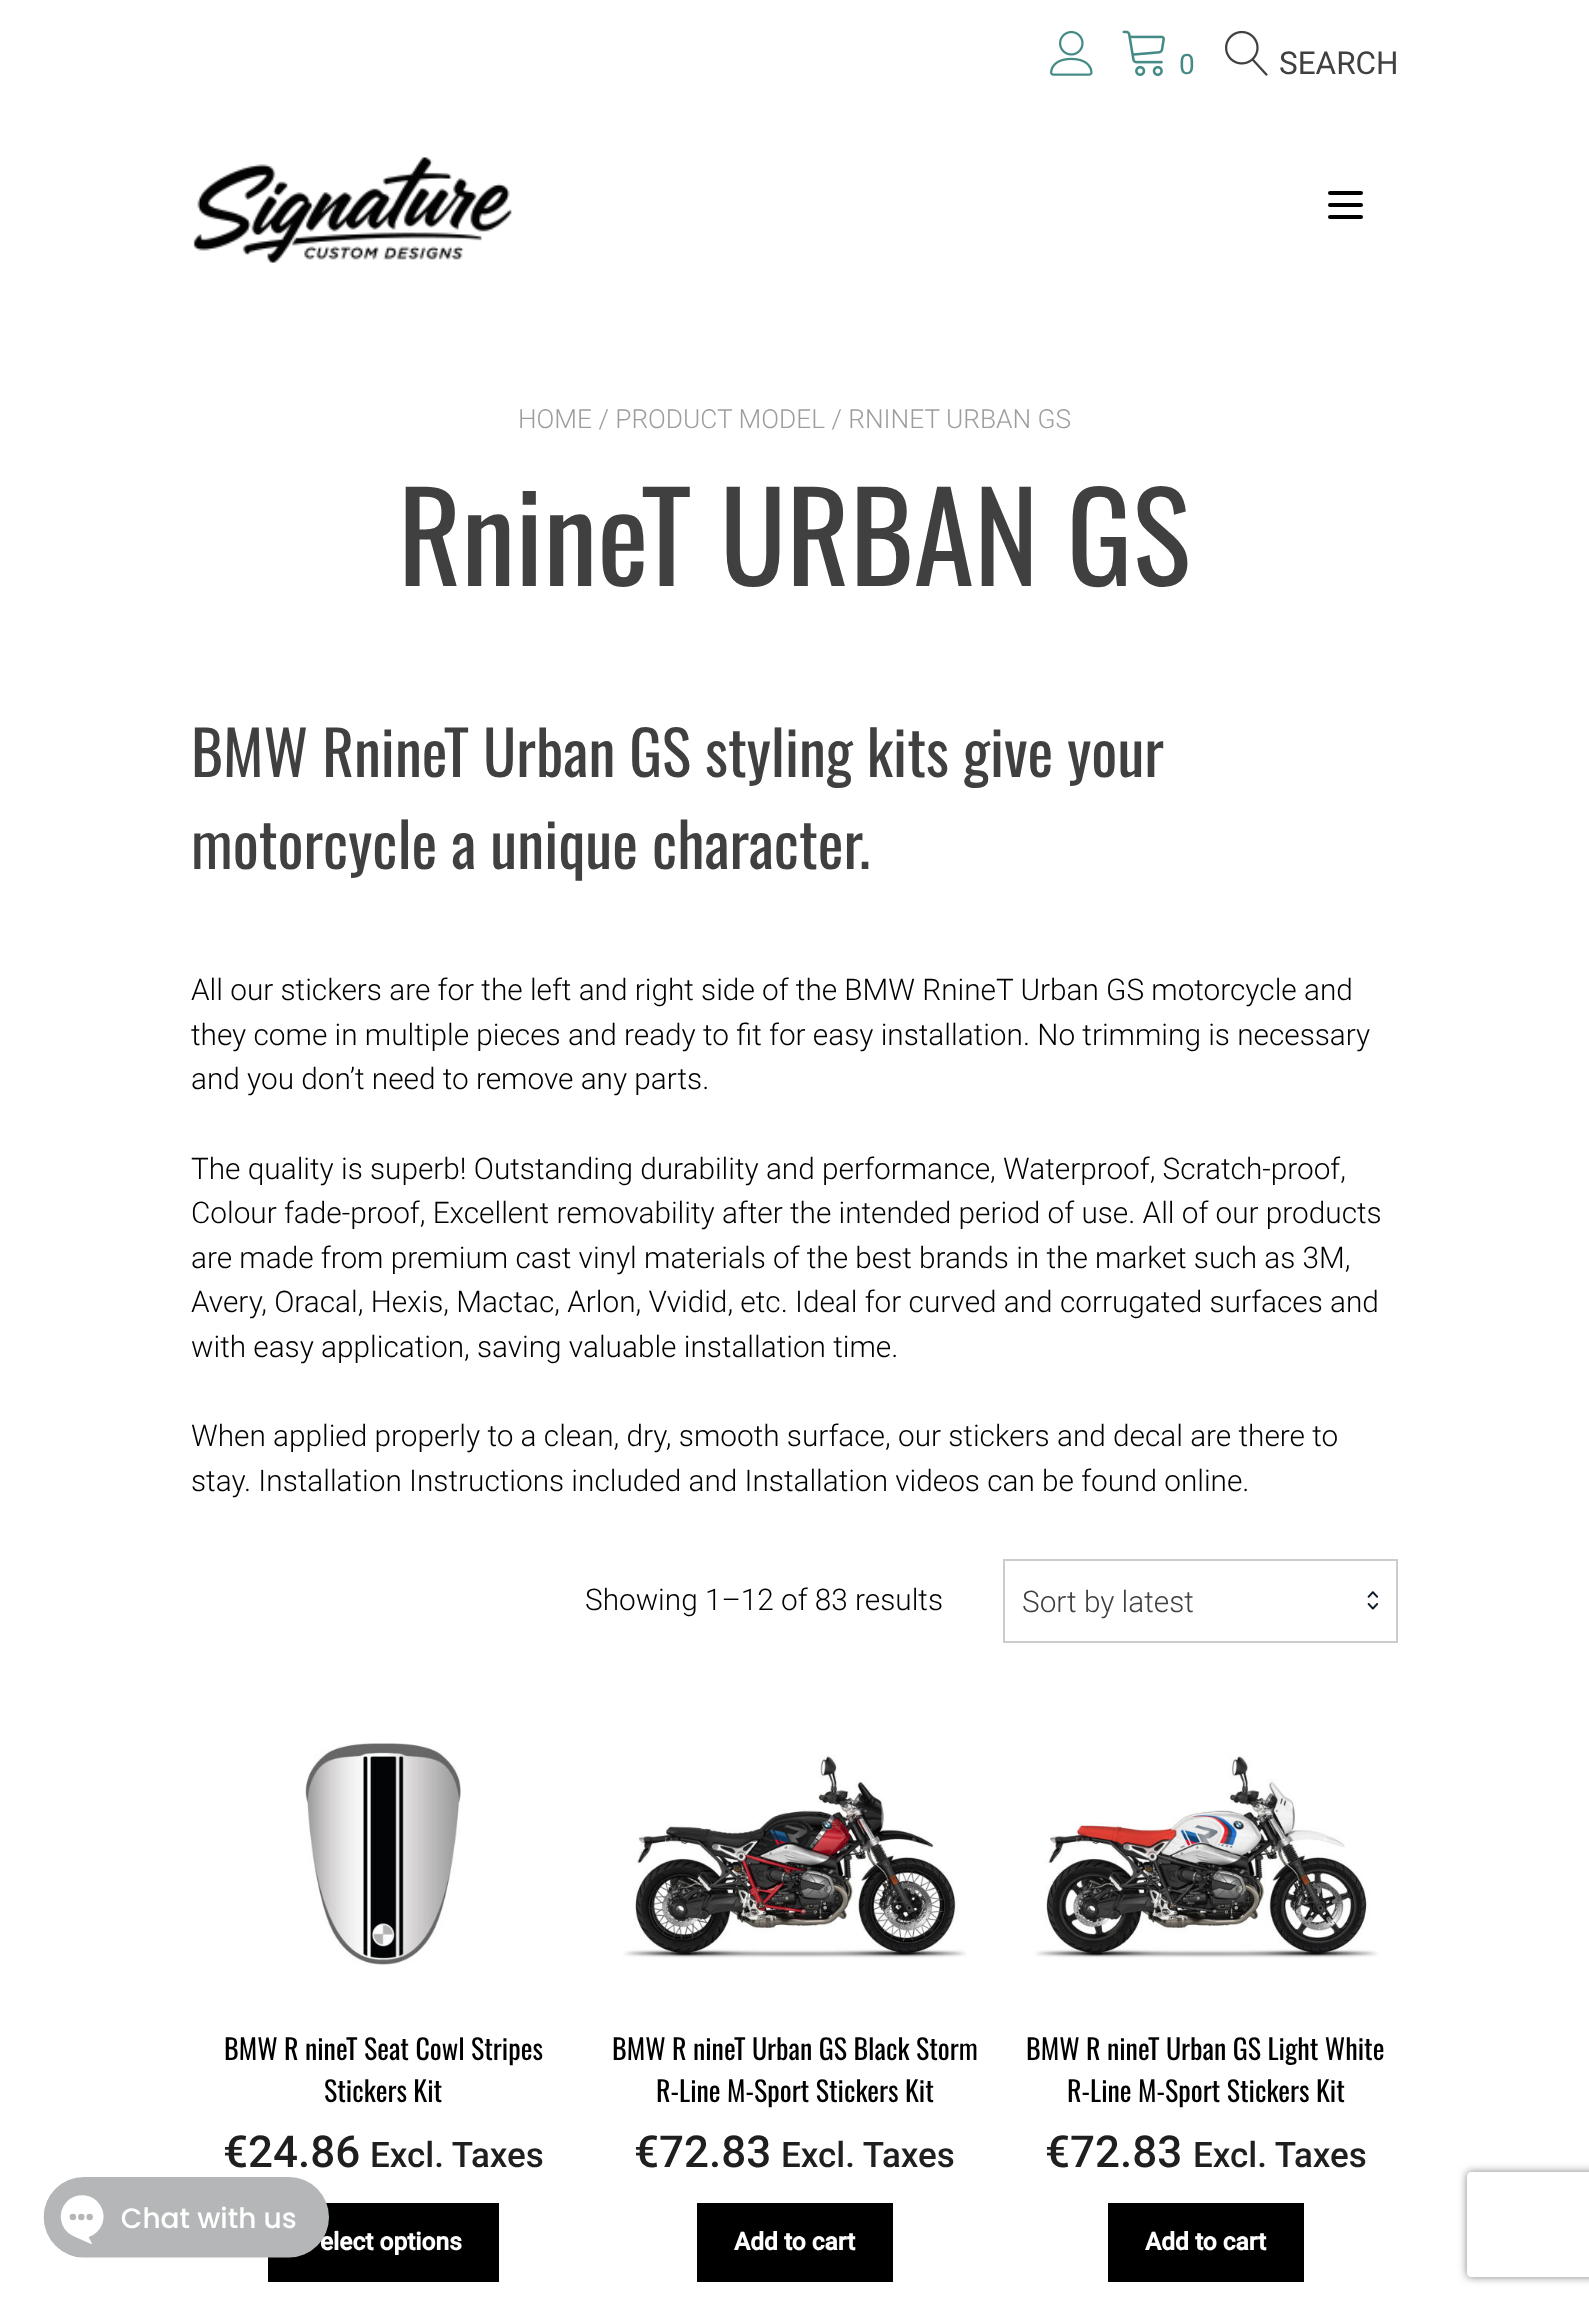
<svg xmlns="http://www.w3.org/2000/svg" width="1589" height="2301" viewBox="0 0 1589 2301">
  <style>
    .t1 { font: bold 24.5px Roboto; fill: #fff; }
    .t2 { font: 28px Roboto; fill: #448a85; }
    .t3 { font: 31.5px Roboto; fill: #404040; }
    .t4 { font: 300 26.25px Roboto; fill: #9d9d9d; }
    .t5 { font: 122.5px Oswald; fill: #404040; }
    .t6 { font: 61.25px Oswald; fill: #404040; }
    .t7 { font: 300 29.75px Roboto; fill: #000; }
    .t8 { font: 300 29.75px Roboto; fill: #404040; }
    .t9 { font: 28px Oswald; fill: #000; }
    .t10 { font: 500 44px Roboto; fill: #1f1f1f; }
    .t11 { font: 500 35px Roboto; fill: #1f1f1f; }
  </style>
  <defs>
    <clipPath id="clip1"><path d="M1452 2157H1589V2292H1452ZM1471 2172H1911C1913 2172 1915 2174 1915 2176V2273C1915 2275 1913 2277 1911 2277H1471C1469 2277 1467 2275 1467 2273V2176C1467 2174 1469 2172 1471 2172Z" clip-rule="evenodd"/></clipPath>
  </defs>
  <rect width="100%" height="100%" fill="#fff"/>
  <rect x="268" y="2203" width="231" height="79" fill="#000"/>
  <text x="320" y="2250" class="t1">elect options</text>
  <image x="43" y="2177" width="287" height="81" href="images/1.png"/>
  <image x="1050" y="30" width="43" height="46" href="images/2.png"/>
  <image x="1122" y="30" width="43" height="46" href="images/3.png"/>
  <text x="1179" y="74" class="t2">0</text>
  <image x="1225" y="30" width="43" height="46" href="images/4.png"/>
  <text x="1279" y="74" class="t3">SEARCH</text>
  <image x="193" y="157" width="319" height="106" href="images/5.png"/>
  <rect x="1328" y="191" width="35" height="4" rx="2" fill="#000"/>
  <rect x="1328" y="203" width="35" height="4" rx="2" fill="#000"/>
  <rect x="1328" y="215" width="35" height="4" rx="2" fill="#000"/>
  <text x="518" y="428" class="t4">HOME / PRODUCT MODEL / RNINET URBAN GS</text>
  <text x="398" y="586" class="t5">RnineT URBAN GS</text>
  <text x="191" y="777" class="t6">BMW RnineT Urban GS styling kits give your</text>
  <text x="191" y="869" class="t6">motorcycle a unique character.</text>
  <text x="191" y="1000" class="t7">All our stickers are for the left and right side of the BMW RnineT Urban GS motorcycle and</text>
  <text x="191" y="1045" class="t7">they come in multiple pieces and ready to fit for easy installation. No trimming is necessary</text>
  <text x="191" y="1089" class="t7">and you don’t need to remove any parts.</text>
  <text x="191" y="1179" class="t7">The quality is superb! Outstanding durability and performance, Waterproof, Scratch-proof,</text>
  <text x="191" y="1223" class="t7">Colour fade-proof, Excellent removability after the intended period of use. All of our products</text>
  <text x="191" y="1268" class="t7">are made from premium cast vinyl materials of the best brands in the market such as 3M,</text>
  <text x="191" y="1312" class="t7">Avery, Oracal, Hexis, Mactac, Arlon, Vvidid, etc. Ideal for curved and corrugated surfaces and</text>
  <text x="191" y="1357" class="t7">with easy application, saving valuable installation time.</text>
  <text x="191" y="1446" class="t7">When applied properly to a clean, dry, smooth surface, our stickers and decal are there to</text>
  <text x="191" y="1491" class="t7">stay. Installation Instructions included and Installation videos can be found online.</text>
  <text x="585" y="1610" class="t7">Showing 1–12 of 83 results</text>
  <rect x="1004" y="1560" width="393" height="82" fill="none" stroke="#ccc" stroke-width="2"/>
  <text x="1022" y="1612" class="t8">Sort by latest</text>
  <image x="1367" y="1591" width="12" height="19" href="images/6.png"/>
  <image x="305" y="1743" width="156" height="223" href="images/7.png"/>
  <text x="224" y="2060" class="t9">BMW R nineT Seat Cowl Stripes</text>
  <text x="324" y="2102" class="t9">Stickers Kit</text>
  <text x="223" y="2167" class="t10">€24.86</text>
  <text x="370" y="2167" class="t11">Excl. Taxes</text>
  <image x="623" y="1755" width="344" height="203" href="images/8.png"/>
  <text x="612" y="2060" class="t9">BMW R nineT Urban GS Black Storm</text>
  <text x="656" y="2102" class="t9">R-Line M-Sport Stickers Kit</text>
  <text x="634" y="2167" class="t10">€72.83</text>
  <text x="781" y="2167" class="t11">Excl. Taxes</text>
  <rect x="697" y="2203" width="196" height="79" fill="#000"/>
  <text x="734" y="2250" class="t1">Add to cart</text>
  <image x="1034" y="1755" width="345" height="203" href="images/9.png"/>
  <text x="1026" y="2060" class="t9">BMW R nineT Urban GS Light White</text>
  <text x="1067" y="2102" class="t9">R-Line M-Sport Stickers Kit</text>
  <text x="1045" y="2167" class="t10">€72.83</text>
  <text x="1193" y="2167" class="t11">Excl. Taxes</text>
  <rect x="1108" y="2203" width="196" height="79" fill="#000"/>
  <text x="1145" y="2250" class="t1">Add to cart</text>
  <g clip-path="url(#clip1)">
    <rect x="1467" y="2172" width="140" height="105" rx="4" fill="#808080" filter="blur(4.5px)"/>
  </g>
</svg>
